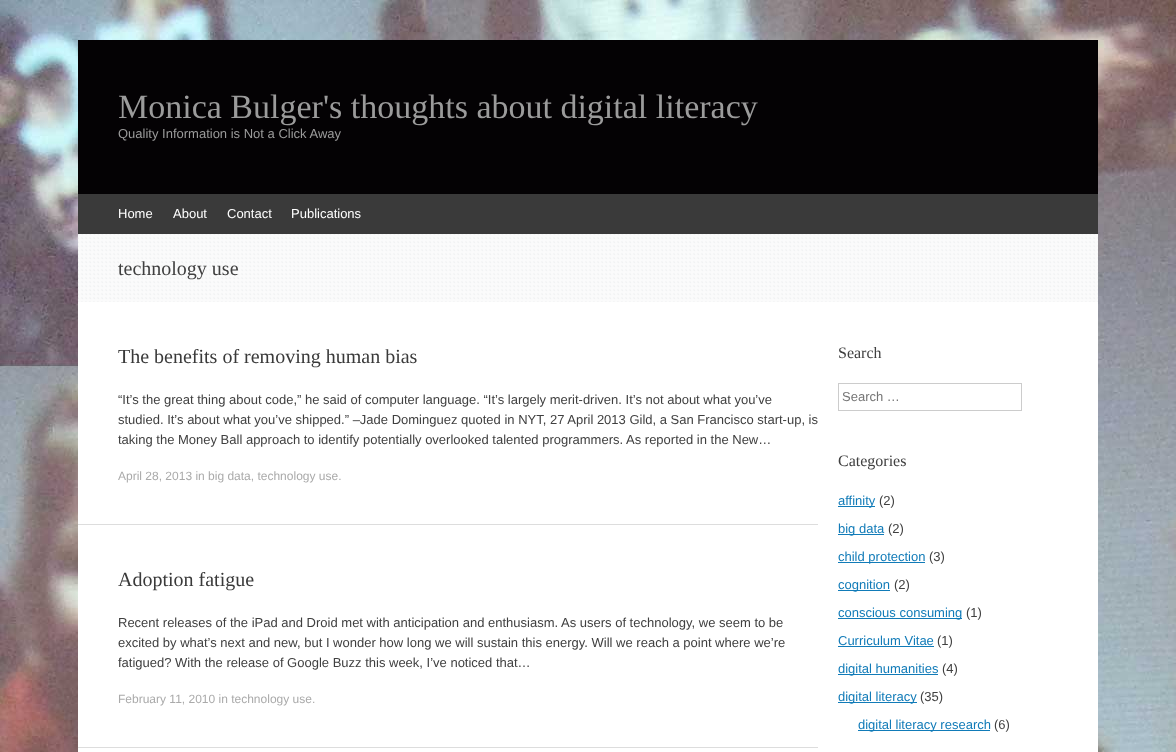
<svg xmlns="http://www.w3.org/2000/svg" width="1176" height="752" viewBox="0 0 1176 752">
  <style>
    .t1 { font: 34px Liberation Serif; fill: #9b9b9b; }
    .t2 { font: 13px Liberation Sans; fill: #9b9b9b; }
    .t3 { font: 13px Liberation Sans; fill: #fff; }
    .t4 { font: 20px Liberation Serif; fill: #404040; }
    .t5 { font: 20px Liberation Serif; fill: #3a3a3a; }
    .t6 { font: 13px Liberation Sans; fill: #404040; }
    .t7 { font: 12px Liberation Sans; fill: #aaa; }
    .t8 { font: 16px Liberation Serif; fill: #404040; }
    .t9 { font: 13px Liberation Sans; fill: #757575; }
    .t10 { font: 13px Liberation Sans; fill: #117bb8; }
  </style>
  <rect width="100%" height="100%" fill="#fff"/>
  <image x="0" y="0" width="1176" height="752" href="images/1.png"/>
  <rect x="78" y="234" width="1020" height="518" fill="#fff"/>
  <rect x="78" y="40" width="1020" height="154" fill="#040204"/>
  <text x="118" y="118" class="t1">Monica Bulger's thoughts about digital literacy</text>
  <text x="118" y="138" class="t2">Quality Information is Not a Click Away</text>
  <rect x="78" y="194" width="1020" height="40" fill="#3a3a3a"/>
  <text x="118" y="218" class="t3">Home</text>
  <text x="173" y="218" class="t3">About</text>
  <text x="227" y="218" class="t3">Contact</text>
  <text x="291" y="218" class="t3">Publications</text>
  <image x="78" y="234" width="1020" height="68" href="images/2.png"/>
  <text x="118" y="275" class="t4">technology use</text>
  <rect x="78" y="524" width="740" height="1" fill="#ddd"/>
  <text x="118" y="363" class="t5">The benefits of removing human bias</text>
  <text x="118" y="404" class="t6">“It’s the great thing about code,” he said of computer language. “It’s largely merit-driven. It’s not about what you’ve</text>
  <text x="118" y="424" class="t6">studied. It’s about what you’ve shipped.” –Jade Dominguez quoted in NYT, 27 April 2013 Gild, a San Francisco start-up, is</text>
  <text x="118" y="444" class="t6">taking the Money Ball approach to identify potentially overlooked talented programmers. As reported in the New…</text>
  <text x="118" y="480" class="t7">April 28, 2013 in big data, technology use.</text>
  <rect x="78" y="747" width="740" height="1" fill="#ddd"/>
  <text x="118" y="586" class="t5">Adoption fatigue</text>
  <text x="118" y="627" class="t6">Recent releases of the iPad and Droid met with anticipation and enthusiasm. As users of technology, we seem to be</text>
  <text x="118" y="647" class="t6">excited by what’s next and new, but I wonder how long we will sustain this energy. Will we reach a point where we’re</text>
  <text x="118" y="667" class="t6">fatigued? With the release of Google Buzz this week, I’ve noticed that…</text>
  <text x="118" y="703" class="t7">February 11, 2010 in technology use.</text>
  <text x="838" y="358" class="t8">Search</text>
  <rect x="838.5" y="383.5" width="183" height="27" fill="none" stroke="#ccc"/>
  <text x="842" y="401" class="t9">Search …</text>
  <text x="838" y="466" class="t8">Categories</text>
  <rect x="838" y="506" width="37" height="1" fill="#117bb8"/>
  <text x="838" y="505" class="t10">affinity</text>
  <text x="879" y="505" class="t6">(2)</text>
  <rect x="838" y="534" width="46" height="1" fill="#117bb8"/>
  <text x="838" y="533" class="t10">big data</text>
  <text x="888" y="533" class="t6">(2)</text>
  <rect x="838" y="562" width="87" height="1" fill="#117bb8"/>
  <text x="838" y="561" class="t10">child protection</text>
  <text x="929" y="561" class="t6">(3)</text>
  <rect x="838" y="590" width="52" height="1" fill="#117bb8"/>
  <text x="838" y="589" class="t10">cognition</text>
  <text x="894" y="589" class="t6">(2)</text>
  <rect x="838" y="618" width="124" height="1" fill="#117bb8"/>
  <text x="838" y="617" class="t10">conscious consuming</text>
  <text x="966" y="617" class="t6">(1)</text>
  <text x="838" y="645" class="t10">Curriculum Vitae</text>
  <rect x="838" y="646" width="96" height="1" fill="#117bb8"/>
  <text x="937" y="645" class="t6">(1)</text>
  <rect x="838" y="674" width="100" height="1" fill="#117bb8"/>
  <text x="838" y="673" class="t10">digital humanities</text>
  <text x="942" y="673" class="t6">(4)</text>
  <rect x="838" y="702" width="79" height="1" fill="#117bb8"/>
  <text x="838" y="701" class="t10">digital literacy</text>
  <text x="920" y="701" class="t6">(35)</text>
  <rect x="858" y="730" width="132" height="1" fill="#117bb8"/>
  <text x="858" y="729" class="t10">digital literacy research</text>
  <text x="994" y="729" class="t6">(6)</text>
</svg>
